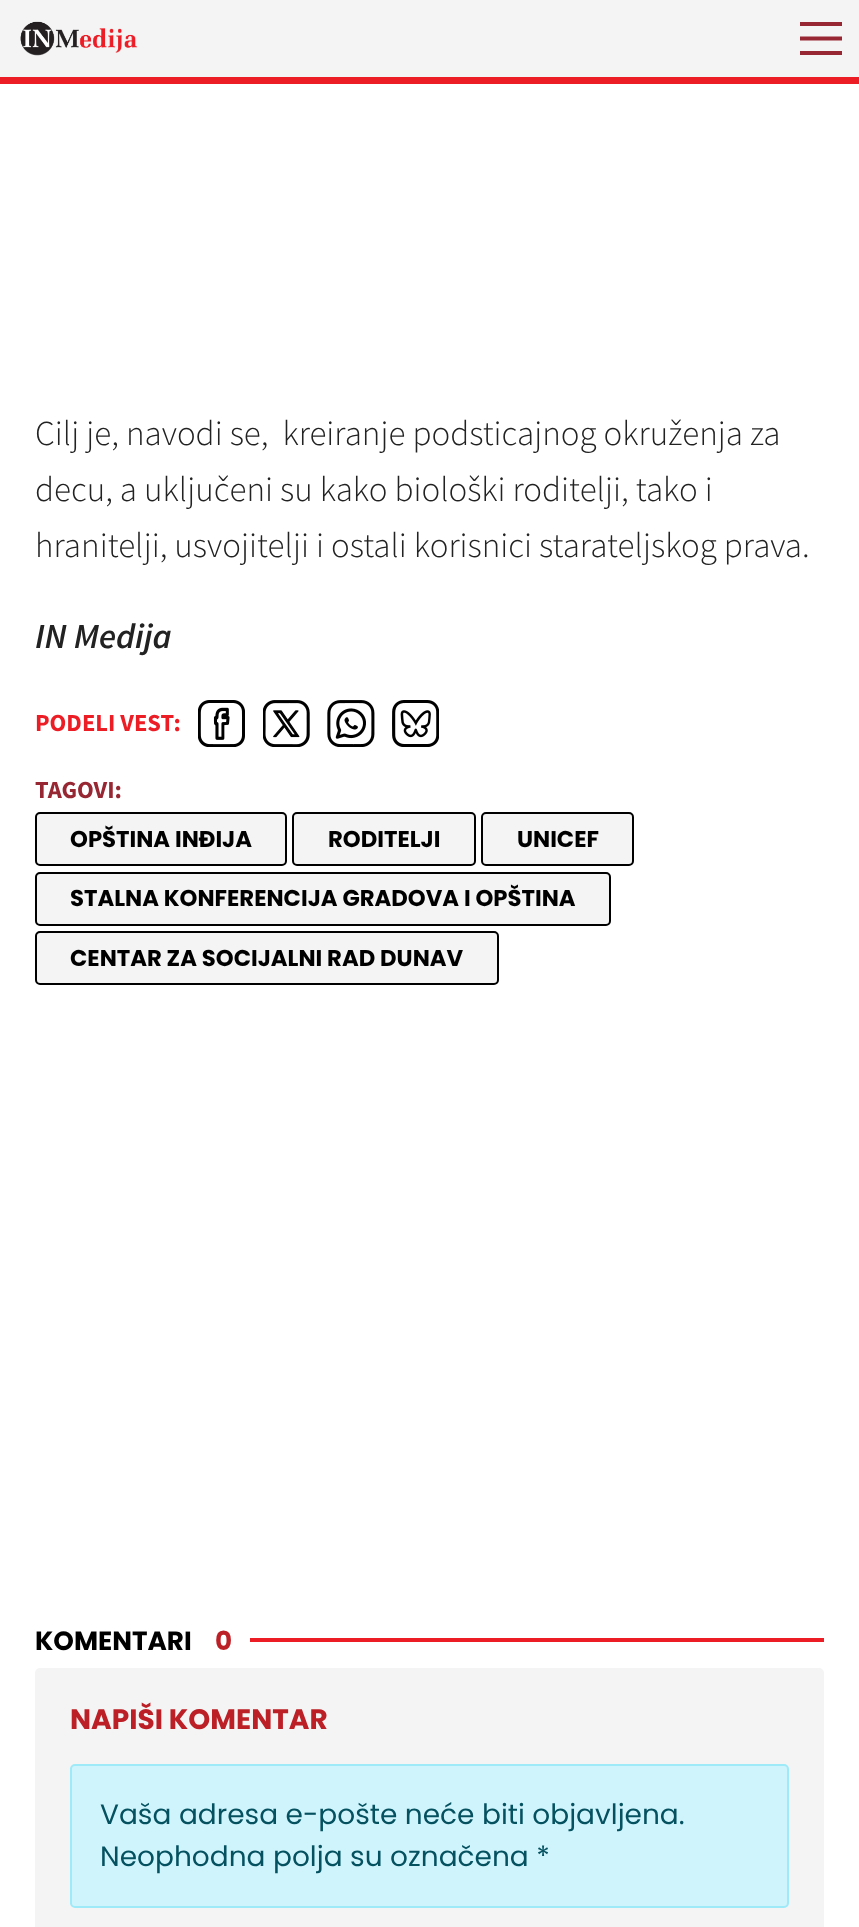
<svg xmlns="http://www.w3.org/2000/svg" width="859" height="1927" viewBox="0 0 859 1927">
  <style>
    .t1 { font: 300 35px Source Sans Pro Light; fill: #222; }
    .t2 { font: italic 600 35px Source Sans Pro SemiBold; fill: #222; }
    .t3 { font: bold 24.5px Source Sans Pro; fill: #ed1d26; }
    .t4 { font: bold 24.5px Source Sans Pro; fill: #972732; }
    .t5 { font: bold 22.75px Poppins; fill: #000; }
    .t6 { font: bold 26.25px Poppins; fill: #000; }
    .t7 { font: bold 26.25px Poppins; fill: #bc2026; }
    .t8 { font: bold 28px Poppins; fill: #bc2026; }
    .t9 { font: 28px Poppins; fill: #055160; }
  </style>
  <rect width="100%" height="100%" fill="#fff"/>
  <rect x="0" y="0" width="859" height="77" fill="#f4f4f4"/>
  <rect x="0" y="77" width="859" height="7" fill="#ed1d26"/>
  <image x="20" y="21" width="118" height="35" href="images/1.png"/>
  <rect x="800" y="51" width="42" height="4" fill="#972732"/>
  <path d="M842 38.5H800" fill="none" stroke="#972732" stroke-width="4.2"/>
  <rect x="800" y="22" width="42" height="4" fill="#972732"/>
  <text x="35" y="445" class="t1" xml:space="preserve">Cilj je, navodi se,  kreiranje podsticajnog okruženja za</text>
  <text x="35" y="501" class="t1">decu, a uključeni su kako biološki roditelji, tako i</text>
  <text x="35" y="557" class="t1">hranitelji, usvojitelji i ostali korisnici starateljskog prava.</text>
  <text x="35" y="648" class="t2">IN Medija</text>
  <text x="35" y="731" class="t3">PODELI VEST:</text>
  <image x="198" y="700" width="47" height="47" href="images/2.png"/>
  <image x="263" y="700" width="47" height="47" href="images/3.png"/>
  <image x="327" y="700" width="48" height="47" href="images/4.png"/>
  <image x="392" y="700" width="47" height="47" href="images/5.png"/>
  <text x="35" y="798" class="t4">TAGOVI:</text>
  <rect x="36" y="813" width="250" height="52" rx="4" fill="#f4f4f4" stroke="#000" stroke-width="2"/>
  <text x="70" y="847" class="t5">OPŠTINA INĐIJA</text>
  <rect x="293" y="813" width="182" height="52" rx="4" fill="#f4f4f4" stroke="#000" stroke-width="2"/>
  <text x="328" y="847" class="t5">RODITELJI</text>
  <rect x="482" y="813" width="151" height="52" rx="4" fill="#f4f4f4" stroke="#000" stroke-width="2"/>
  <text x="517" y="847" class="t5">UNICEF</text>
  <rect x="36" y="873" width="574" height="52" rx="4" fill="#f4f4f4" stroke="#000" stroke-width="2"/>
  <text x="70" y="906" class="t5">STALNA KONFERENCIJA GRADOVA I OPŠTINA</text>
  <rect x="36" y="932" width="462" height="52" rx="4" fill="#f4f4f4" stroke="#000" stroke-width="2"/>
  <text x="70" y="966" class="t5">CENTAR ZA SOCIJALNI RAD DUNAV</text>
  <text x="35" y="1650" class="t6">KOMENTARI</text>
  <text x="215" y="1650" class="t7">0</text>
  <rect x="250" y="1638" width="574" height="4" fill="#ed1d26"/>
  <rect x="35" y="1668" width="789" height="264" rx="5" fill="#f4f4f4"/>
  <text x="70" y="1729" class="t8">NAPIŠI KOMENTAR</text>
  <rect x="71" y="1765" width="717" height="142" rx="4" fill="#cff4fc" stroke="#9eeaf9" stroke-width="2"/>
  <text x="100" y="1824" class="t9">Vaša adresa e-pošte neće biti objavljena.</text>
  <text x="100" y="1866" class="t9">Neophodna polja su označena *</text>
</svg>
